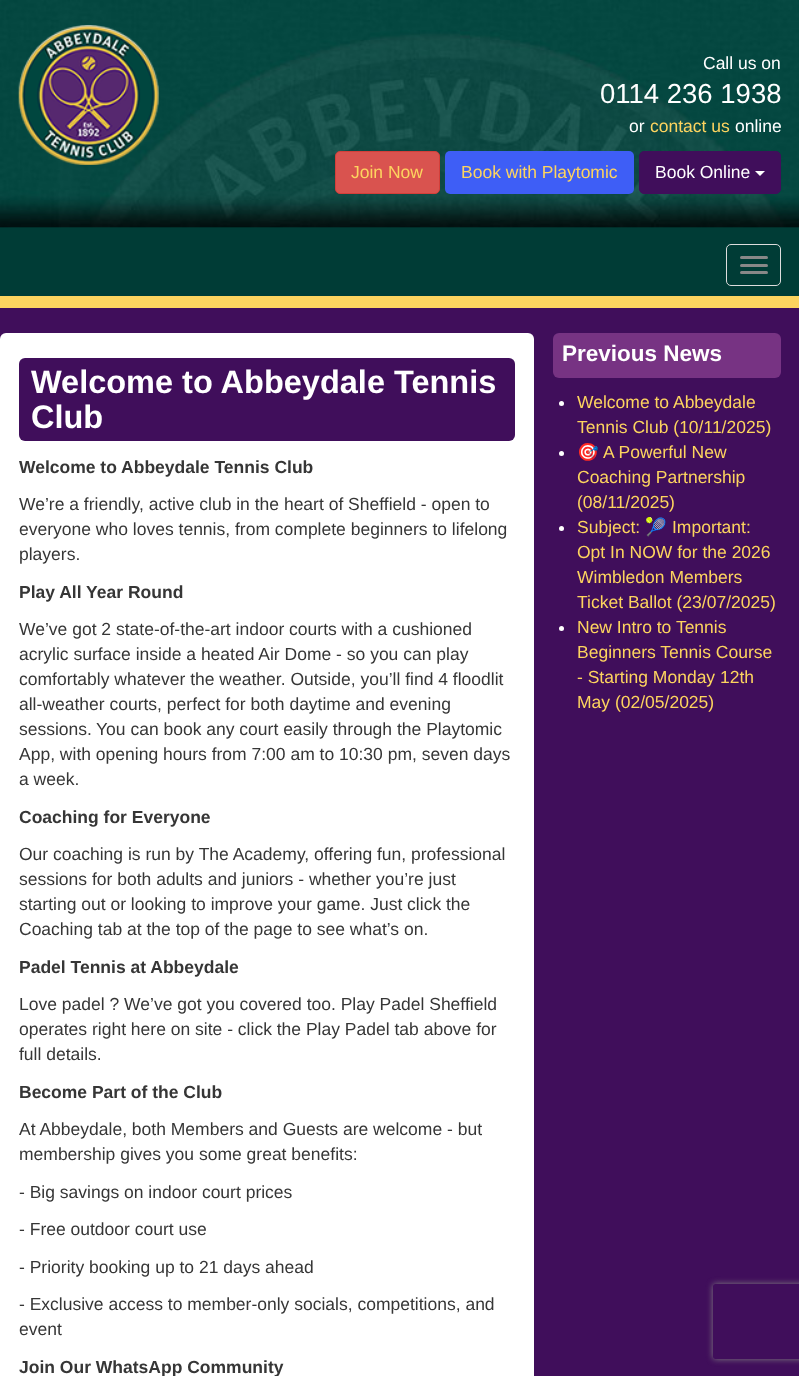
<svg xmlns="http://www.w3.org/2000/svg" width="799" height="1376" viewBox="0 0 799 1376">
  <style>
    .t1 { font: 17.5px Liberation Sans; fill: #fff; }
    .t2 { font: 27.5px Liberation Sans; fill: #fff; }
    .t3 { font: 17.5px Liberation Sans; fill: #fdd45f; }
    .t4 { font: bold 32.5px Liberation Sans; fill: #fff; }
    .t5 { font: bold 17.5px Liberation Sans; fill: #363636; }
    .t6 { font: 17.5px Liberation Sans; fill: #363636; }
    .t7 { font: bold 22.5px Liberation Sans; fill: #fff; }
    .t8 { font: 17.5px Noto Color Emoji; fill: #fdd45f; }
  </style>
  <defs>
    <clipPath id="clip1"><path d="M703 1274H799V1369H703ZM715.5 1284H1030.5C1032 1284 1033 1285 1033 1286.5V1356.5C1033 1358 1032 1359 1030.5 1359H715.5C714 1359 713 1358 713 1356.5V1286.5C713 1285 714 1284 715.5 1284Z" clip-rule="evenodd"/></clipPath>
  </defs>
  <rect width="100%" height="100%" fill="#400e5b"/>
  <rect x="0" y="227" width="799" height="1" fill="#004c44"/>
  <image x="0" y="0" width="799" height="228" href="images/1.png"/>
  <image x="18" y="25" width="141" height="140" href="images/2.png"/>
  <text x="703" y="69" class="t1">Call us on</text>
  <text x="600" y="103" class="t2">0114 236 1938</text>
  <text x="629" y="132" class="t1">or</text>
  <text x="650" y="132" class="t3">contact us</text>
  <text x="735" y="132" class="t1">online</text>
  <rect x="335.5" y="151.5" width="104" height="42" rx="4.5" fill="#d9534f" stroke="#d43f3a"/>
  <text x="351" y="178" class="t3">Join Now</text>
  <rect x="445" y="151" width="189" height="43" rx="5" fill="#3e5ef6"/>
  <text x="461" y="178" class="t3">Book with Playtomic</text>
  <rect x="639.5" y="151.5" width="141" height="42" rx="4.5" fill="#400e5b" stroke="#400e5b"/>
  <text x="655" y="178" class="t1">Book Online</text>
  <path d="M755 171H765L760 176Z" fill="#fff"/>
  <rect x="0" y="228" width="799" height="68" fill="#003c36"/>
  <rect x="0" y="296" width="799" height="12" fill="#fdd45f"/>
  <rect x="726.5" y="244.5" width="54" height="41" rx="4.5" fill="none" stroke="#ddd"/>
  <rect x="740" y="256" width="28" height="3" rx="1.5" fill="#888"/>
  <rect x="740" y="264" width="28" height="3" rx="1.5" fill="#888"/>
  <rect x="740" y="271" width="28" height="3" rx="1.5" fill="#888"/>
  <rect x="0" y="333" width="534" height="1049" rx="6" fill="#fff"/>
  <rect x="19" y="358" width="496" height="83" rx="6" fill="#400e5b"/>
  <text x="31" y="393" class="t4">Welcome to Abbeydale Tennis</text>
  <text x="31" y="428" class="t4">Club</text>
  <text x="19" y="473" class="t5">Welcome to Abbeydale Tennis Club</text>
  <text x="19" y="510" class="t6">We’re a friendly, active club in the heart of Sheffield - open to</text>
  <text x="19" y="535" class="t6">everyone who loves tennis, from complete beginners to lifelong</text>
  <text x="19" y="560" class="t6">players.</text>
  <text x="19" y="598" class="t5">Play All Year Round</text>
  <text x="19" y="635" class="t6">We’ve got 2 state-of-the-art indoor courts with a cushioned</text>
  <text x="19" y="660" class="t6">acrylic surface inside a heated Air Dome - so you can play</text>
  <text x="19" y="685" class="t6">comfortably whatever the weather. Outside, you’ll find 4 floodlit</text>
  <text x="19" y="710" class="t6">all-weather courts, perfect for both daytime and evening</text>
  <text x="19" y="735" class="t6">sessions.</text>
  <text x="96" y="735" class="t6">You can book any court easily through the Playtomic</text>
  <text x="19" y="760" class="t6">App, with opening hours from 7:00 am to 10:30 pm, seven days</text>
  <text x="19" y="785" class="t6">a week.</text>
  <text x="19" y="823" class="t5">Coaching for Everyone</text>
  <text x="19" y="860" class="t6">Our coaching is run by The Academy, offering fun, professional</text>
  <text x="19" y="885" class="t6">sessions for both adults and juniors - whether you’re just</text>
  <text x="19" y="910" class="t6">starting out or looking to improve your game. Just click the</text>
  <text x="19" y="935" class="t6">Coaching tab at the top of the page to see what’s on.</text>
  <text x="19" y="973" class="t5">Padel Tennis at Abbeydale</text>
  <text x="19" y="1010" class="t6">Love padel ? We’ve got you covered too. Play Padel Sheffield</text>
  <text x="19" y="1035" class="t6">operates right here on site - click the Play Padel tab above for</text>
  <text x="19" y="1060" class="t6">full details.</text>
  <text x="19" y="1098" class="t5">Become Part of the Club</text>
  <text x="19" y="1135" class="t6">At Abbeydale, both Members and Guests are welcome - but</text>
  <text x="19" y="1160" class="t6">membership gives you some great benefits:</text>
  <text x="19" y="1198" class="t6">- Big savings on indoor court prices</text>
  <text x="19" y="1235" class="t6">- Free outdoor court use</text>
  <text x="19" y="1273" class="t6">- Priority booking up to 21 days ahead</text>
  <text x="19" y="1310" class="t6">- Exclusive access to member-only socials, competitions, and</text>
  <text x="19" y="1335" class="t6">event</text>
  <text x="19" y="1373" class="t5">Join Our WhatsApp Community</text>
  <rect x="553" y="333" width="228" height="45" rx="6" fill="#773383"/>
  <text x="562" y="361" class="t7">Previous News</text>
  <circle cx="561.5" cy="403.5" r="2.5" fill="#fff"/>
  <text x="577" y="408" class="t3">Welcome to Abbeydale</text>
  <text x="577" y="433" class="t3">Tennis Club (10/11/2025)</text>
  <circle cx="561.5" cy="453.5" r="2.5" fill="#fff"/>
  <text x="577" y="458" class="t8">🎯</text>
  <text x="603" y="458" class="t3">A Powerful New</text>
  <text x="577" y="483" class="t3">Coaching Partnership</text>
  <text x="577" y="508" class="t3">(08/11/2025)</text>
  <circle cx="561.5" cy="528.5" r="2.5" fill="#fff"/>
  <text x="577" y="533" class="t3">Subject:</text>
  <text x="645" y="533" class="t8">🎾</text>
  <text x="672" y="533" class="t3">Important:</text>
  <text x="577" y="558" class="t3">Opt In NOW for the 2026</text>
  <text x="577" y="583" class="t3">Wimbledon Members</text>
  <text x="577" y="608" class="t3">Ticket Ballot (23/07/2025)</text>
  <circle cx="561.5" cy="628.5" r="2.5" fill="#fff"/>
  <text x="577" y="633" class="t3">New Intro to Tennis</text>
  <text x="577" y="658" class="t3">Beginners Tennis Course</text>
  <text x="577" y="683" class="t3">- Starting Monday 12th</text>
  <text x="577" y="708" class="t3">May (02/05/2025)</text>
  <g clip-path="url(#clip1)">
    <rect x="713" y="1284" width="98" height="75" rx="2.5" fill="#808080" filter="blur(3px)"/>
  </g>
</svg>
